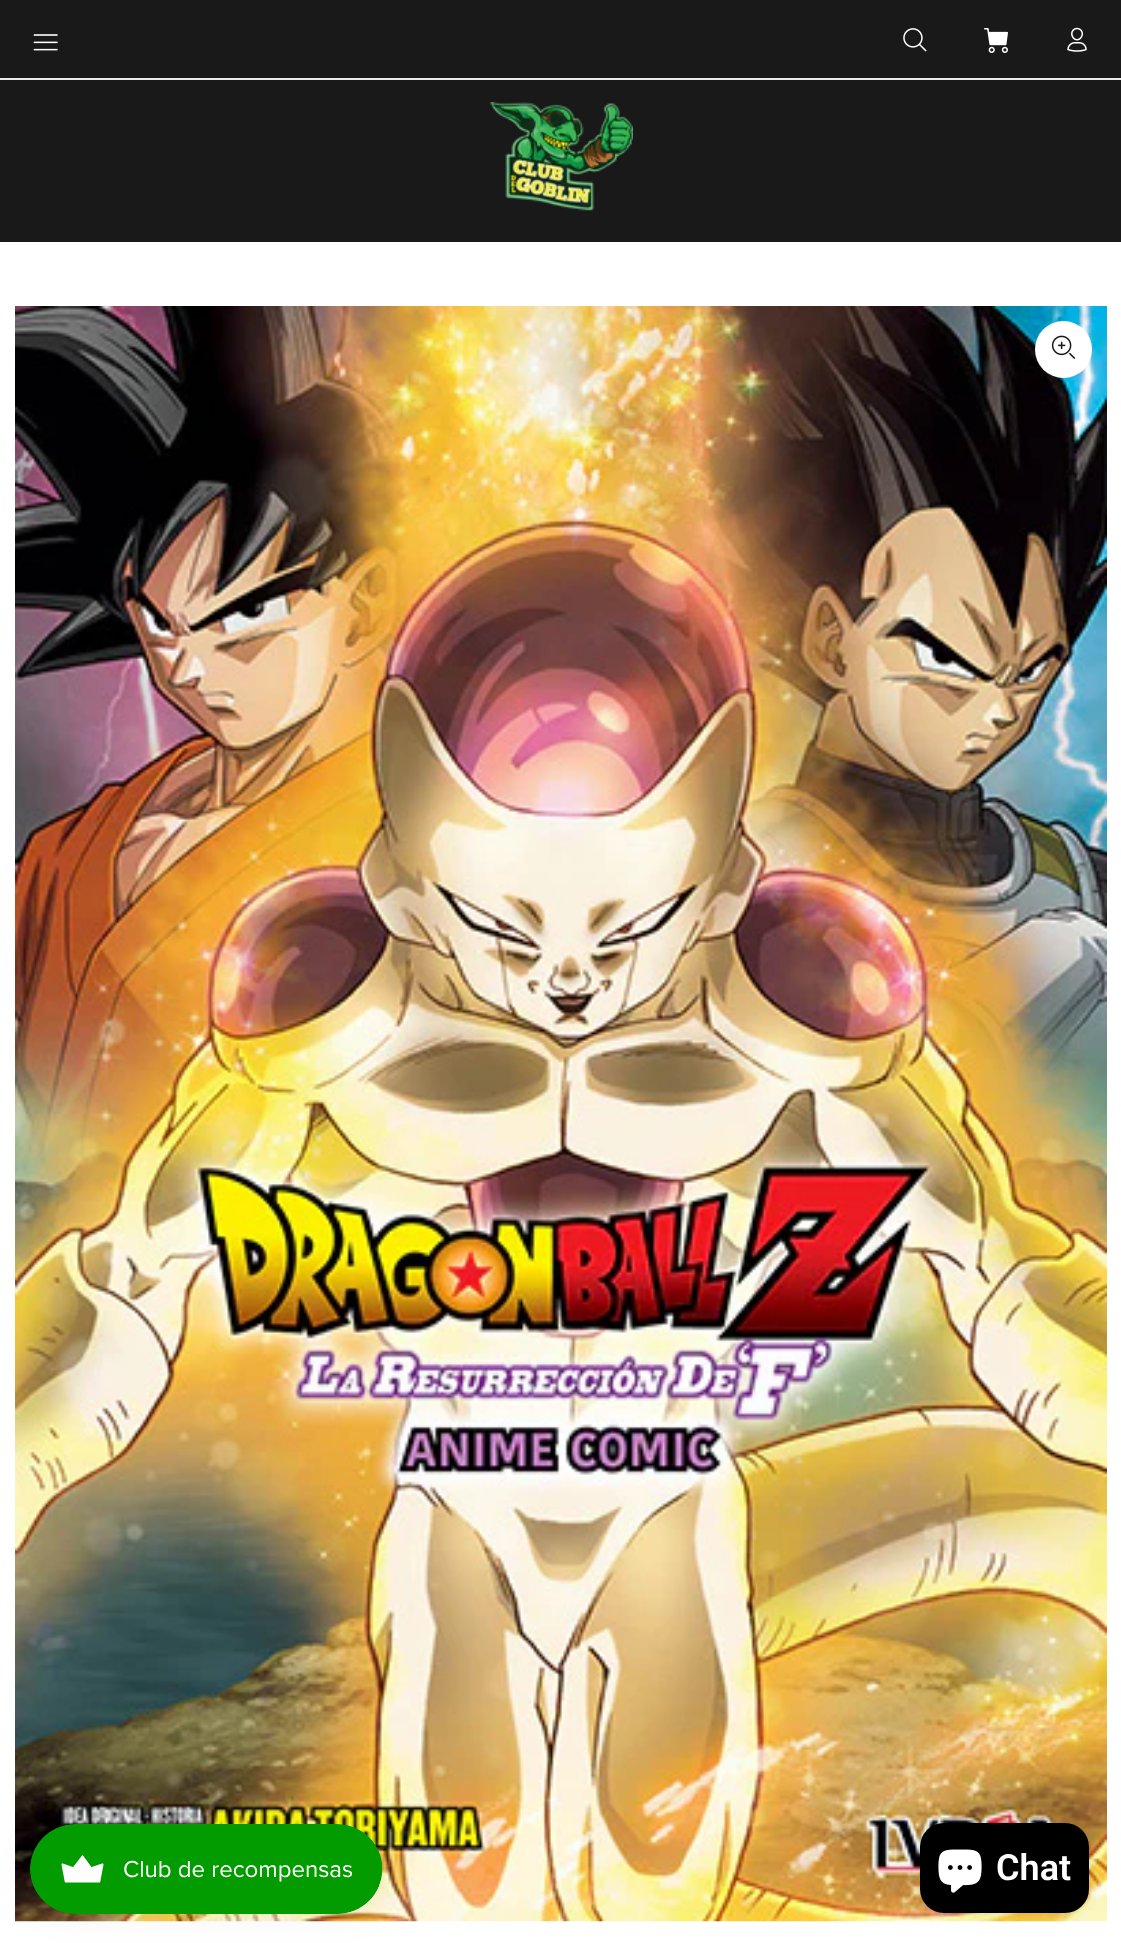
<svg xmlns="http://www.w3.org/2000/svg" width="1121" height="1943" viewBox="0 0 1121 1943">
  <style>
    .t1 { font: 600 36px Roboto; fill: #fff; }
  </style>
  <rect width="100%" height="100%" fill="#fff"/>
  <rect x="0" y="0" width="1121" height="242" fill="#191919"/>
  <image x="33" y="34" width="25" height="17" href="images/1.png"/>
  <image x="903" y="28" width="24" height="24" href="images/2.png"/>
  <image x="984" y="28" width="24" height="25" href="images/3.png"/>
  <image x="1067" y="27" width="20" height="25" href="images/4.png"/>
  <rect x="0" y="78" width="1121" height="2" fill="#e9e7e7"/>
  <image x="490" y="102" width="143" height="109" href="images/5.png"/>
  <image x="15" y="306" width="1092" height="1616" href="images/6.png"/>
  <circle cx="1063.5" cy="349.5" r="28.5" fill="#fff"/>
  <image x="1051" y="335" width="25" height="24" href="images/7.png"/>
  <rect x="30" y="1824" width="353" height="90" rx="45" fill="#0000000d" filter="blur(19px)"/>
  <image x="30" y="1824" width="353" height="90" href="images/8.png"/>
  <rect x="920" y="1823" width="169" height="90" rx="24" fill="#00000026" filter="blur(4px)"/>
  <rect x="920" y="1823" width="169" height="90" rx="24" fill="#000"/>
  <image x="938" y="1849" width="44" height="44" href="images/9.png"/>
  <text x="996" y="1880" class="t1">Chat</text>
</svg>
